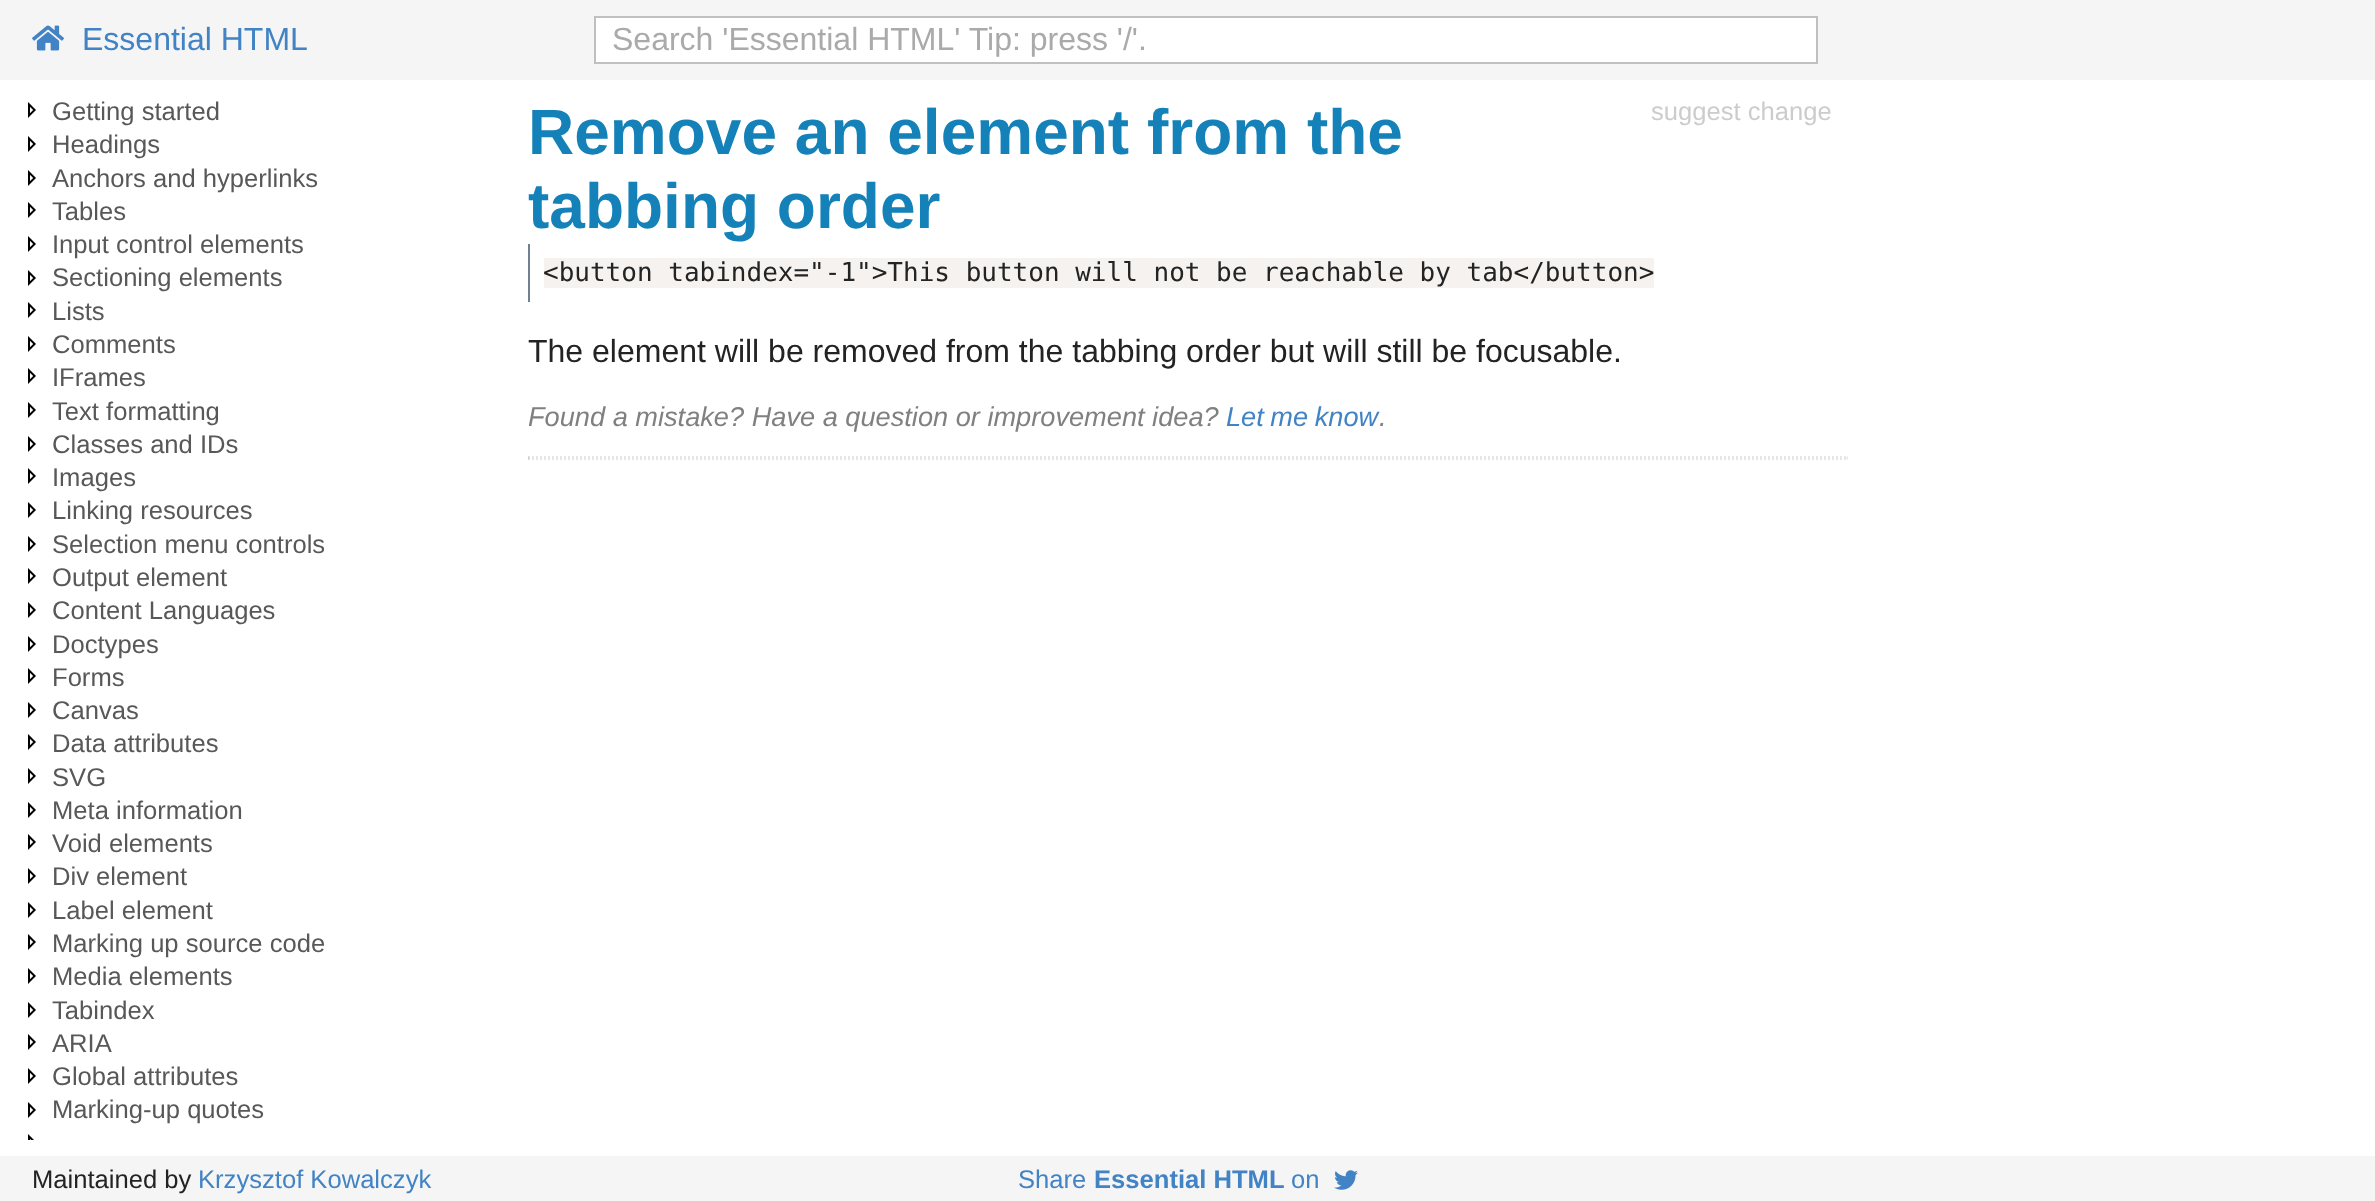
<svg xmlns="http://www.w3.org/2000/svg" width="2375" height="1201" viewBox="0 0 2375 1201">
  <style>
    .t1 { font: 32px Liberation Sans; fill: #4183c4; }
    .t2 { font: 32px Liberation Sans; fill: #aaa; }
    .t3 { font: 25.6px Liberation Sans; fill: #585858; }
    .t4 { font: bold 64px Liberation Sans; fill: #1481b8; }
    .t5 { font: 25.6px Liberation Sans; fill: #ccc; }
    .t6 { font: 26px DejaVu Sans Mono; fill: #232323; }
    .t7 { font: 32px Liberation Sans; fill: #232323; }
    .t8 { font: italic 27.2px Liberation Sans; fill: #808080; }
    .t9 { font: italic 27.2px Liberation Sans; fill: #4183c4; }
    .t10 { font: 25.6px Liberation Sans; fill: #232323; }
    .t11 { font: 25.6px Liberation Sans; fill: #4183c4; }
    .t12 { font: bold 25.6px Liberation Sans; fill: #4183c4; }
  </style>
  <rect width="100%" height="100%" fill="#fff"/>
  <rect x="0" y="0" width="2375" height="80" fill="#f5f5f5"/>
  <image x="32" y="25" width="32" height="26" href="images/1.png"/>
  <text x="82" y="50" class="t1">Essential HTML</text>
  <rect x="595" y="17" width="1222" height="46" fill="#fff" stroke="#c0c0c0" stroke-width="2"/>
  <text x="612" y="50" class="t2">Search 'Essential HTML' Tip: press '/'.</text>
  <image x="28" y="102" width="8" height="16" href="images/2.png"/>
  <text x="52" y="120" class="t3">Getting started</text>
  <image x="28" y="136" width="8" height="16" href="images/2.png"/>
  <text x="52" y="153" class="t3">Headings</text>
  <image x="28" y="170" width="8" height="16" href="images/2.png"/>
  <text x="52" y="187" class="t3">Anchors and hyperlinks</text>
  <image x="28" y="202" width="8" height="16" href="images/2.png"/>
  <text x="52" y="220" class="t3">Tables</text>
  <image x="28" y="236" width="8" height="16" href="images/2.png"/>
  <text x="52" y="253" class="t3">Input control elements</text>
  <image x="28" y="270" width="8" height="16" href="images/2.png"/>
  <text x="52" y="286" class="t3">Sectioning elements</text>
  <image x="28" y="302" width="8" height="16" href="images/2.png"/>
  <text x="52" y="320" class="t3">Lists</text>
  <image x="28" y="336" width="8" height="16" href="images/2.png"/>
  <text x="52" y="353" class="t3">Comments</text>
  <image x="28" y="368" width="8" height="16" href="images/2.png"/>
  <text x="52" y="386" class="t3">IFrames</text>
  <image x="28" y="402" width="8" height="16" href="images/2.png"/>
  <text x="52" y="420" class="t3">Text formatting</text>
  <image x="28" y="436" width="8" height="16" href="images/2.png"/>
  <text x="52" y="453" class="t3">Classes and IDs</text>
  <image x="28" y="468" width="8" height="16" href="images/2.png"/>
  <text x="52" y="486" class="t3">Images</text>
  <image x="28" y="502" width="8" height="16" href="images/2.png"/>
  <text x="52" y="519" class="t3">Linking resources</text>
  <image x="28" y="536" width="8" height="16" href="images/2.png"/>
  <text x="52" y="553" class="t3">Selection menu controls</text>
  <image x="28" y="568" width="8" height="16" href="images/2.png"/>
  <text x="52" y="586" class="t3">Output element</text>
  <image x="28" y="602" width="8" height="16" href="images/2.png"/>
  <text x="52" y="619" class="t3">Content Languages</text>
  <image x="28" y="636" width="8" height="16" href="images/2.png"/>
  <text x="52" y="653" class="t3">Doctypes</text>
  <image x="28" y="668" width="8" height="16" href="images/2.png"/>
  <text x="52" y="686" class="t3">Forms</text>
  <image x="28" y="702" width="8" height="16" href="images/2.png"/>
  <text x="52" y="719" class="t3">Canvas</text>
  <image x="28" y="734" width="8" height="16" href="images/2.png"/>
  <text x="52" y="752" class="t3">Data attributes</text>
  <image x="28" y="768" width="8" height="16" href="images/2.png"/>
  <text x="52" y="786" class="t3">SVG</text>
  <image x="28" y="802" width="8" height="16" href="images/2.png"/>
  <text x="52" y="819" class="t3">Meta information</text>
  <image x="28" y="834" width="8" height="16" href="images/2.png"/>
  <text x="52" y="852" class="t3">Void elements</text>
  <image x="28" y="868" width="8" height="16" href="images/2.png"/>
  <text x="52" y="885" class="t3">Div element</text>
  <image x="28" y="902" width="8" height="16" href="images/2.png"/>
  <text x="52" y="919" class="t3">Label element</text>
  <image x="28" y="934" width="8" height="16" href="images/2.png"/>
  <text x="52" y="952" class="t3">Marking up source code</text>
  <image x="28" y="968" width="8" height="16" href="images/2.png"/>
  <text x="52" y="985" class="t3">Media elements</text>
  <image x="28" y="1002" width="8" height="16" href="images/2.png"/>
  <text x="52" y="1019" class="t3">Tabindex</text>
  <image x="28" y="1034" width="8" height="16" href="images/2.png"/>
  <text x="52" y="1052" class="t3">ARIA</text>
  <image x="28" y="1068" width="8" height="16" href="images/2.png"/>
  <text x="52" y="1085" class="t3">Global attributes</text>
  <image x="28" y="1102" width="8" height="16" href="images/2.png"/>
  <text x="52" y="1118" class="t3">Marking-up quotes</text>
  <image x="28" y="1134" width="6" height="6" href="images/3.png"/>
  <text x="528" y="154" class="t4">Remove an element from the</text>
  <text x="528" y="228" class="t4">tabbing order</text>
  <text x="1651" y="120" class="t5">suggest change</text>
  <rect x="528" y="244" width="2" height="58" fill="#708090"/>
  <rect x="544" y="258" width="1110" height="30" fill="#f5f2f0"/>
  <text x="543" y="281" class="t6">&lt;button tabindex="-1"&gt;This button will not be reachable by tab&lt;/button&gt;</text>
  <text x="528" y="362" class="t7">The element will be removed from the tabbing order but will still be focusable.</text>
  <text x="528" y="426" class="t8">Found a mistake? Have a question or improvement idea?</text>
  <text x="1226" y="426" word-spacing="-1" class="t9">Let me know</text>
  <text x="1379" y="426" class="t8">.</text>
  <path d="M528 457H1848" fill="none" stroke="#e6e6e6" stroke-width="2" stroke-dasharray="2 2"/>
  <path d="M1848 456V460L1846 458Z" fill="#e6e6e6"/>
  <path d="M528 459H1848" fill="none" stroke="#e6e6e6" stroke-width="2" stroke-dasharray="2 2"/>
  <path d="M528 460V456L530 458Z" fill="#cfcfcf"/>
  <rect x="0" y="1156" width="2375" height="45" fill="#f5f5f5"/>
  <text x="32" y="1188" class="t10">Maintained by</text>
  <text x="198" y="1188" class="t11">Krzysztof Kowalczyk</text>
  <text x="1018" y="1188" class="t11">Share</text>
  <text x="1094" y="1188" class="t12">Essential HTML</text>
  <text x="1291" y="1188" class="t11">on</text>
  <image x="1334" y="1170" width="24" height="20" href="images/4.png"/>
</svg>
